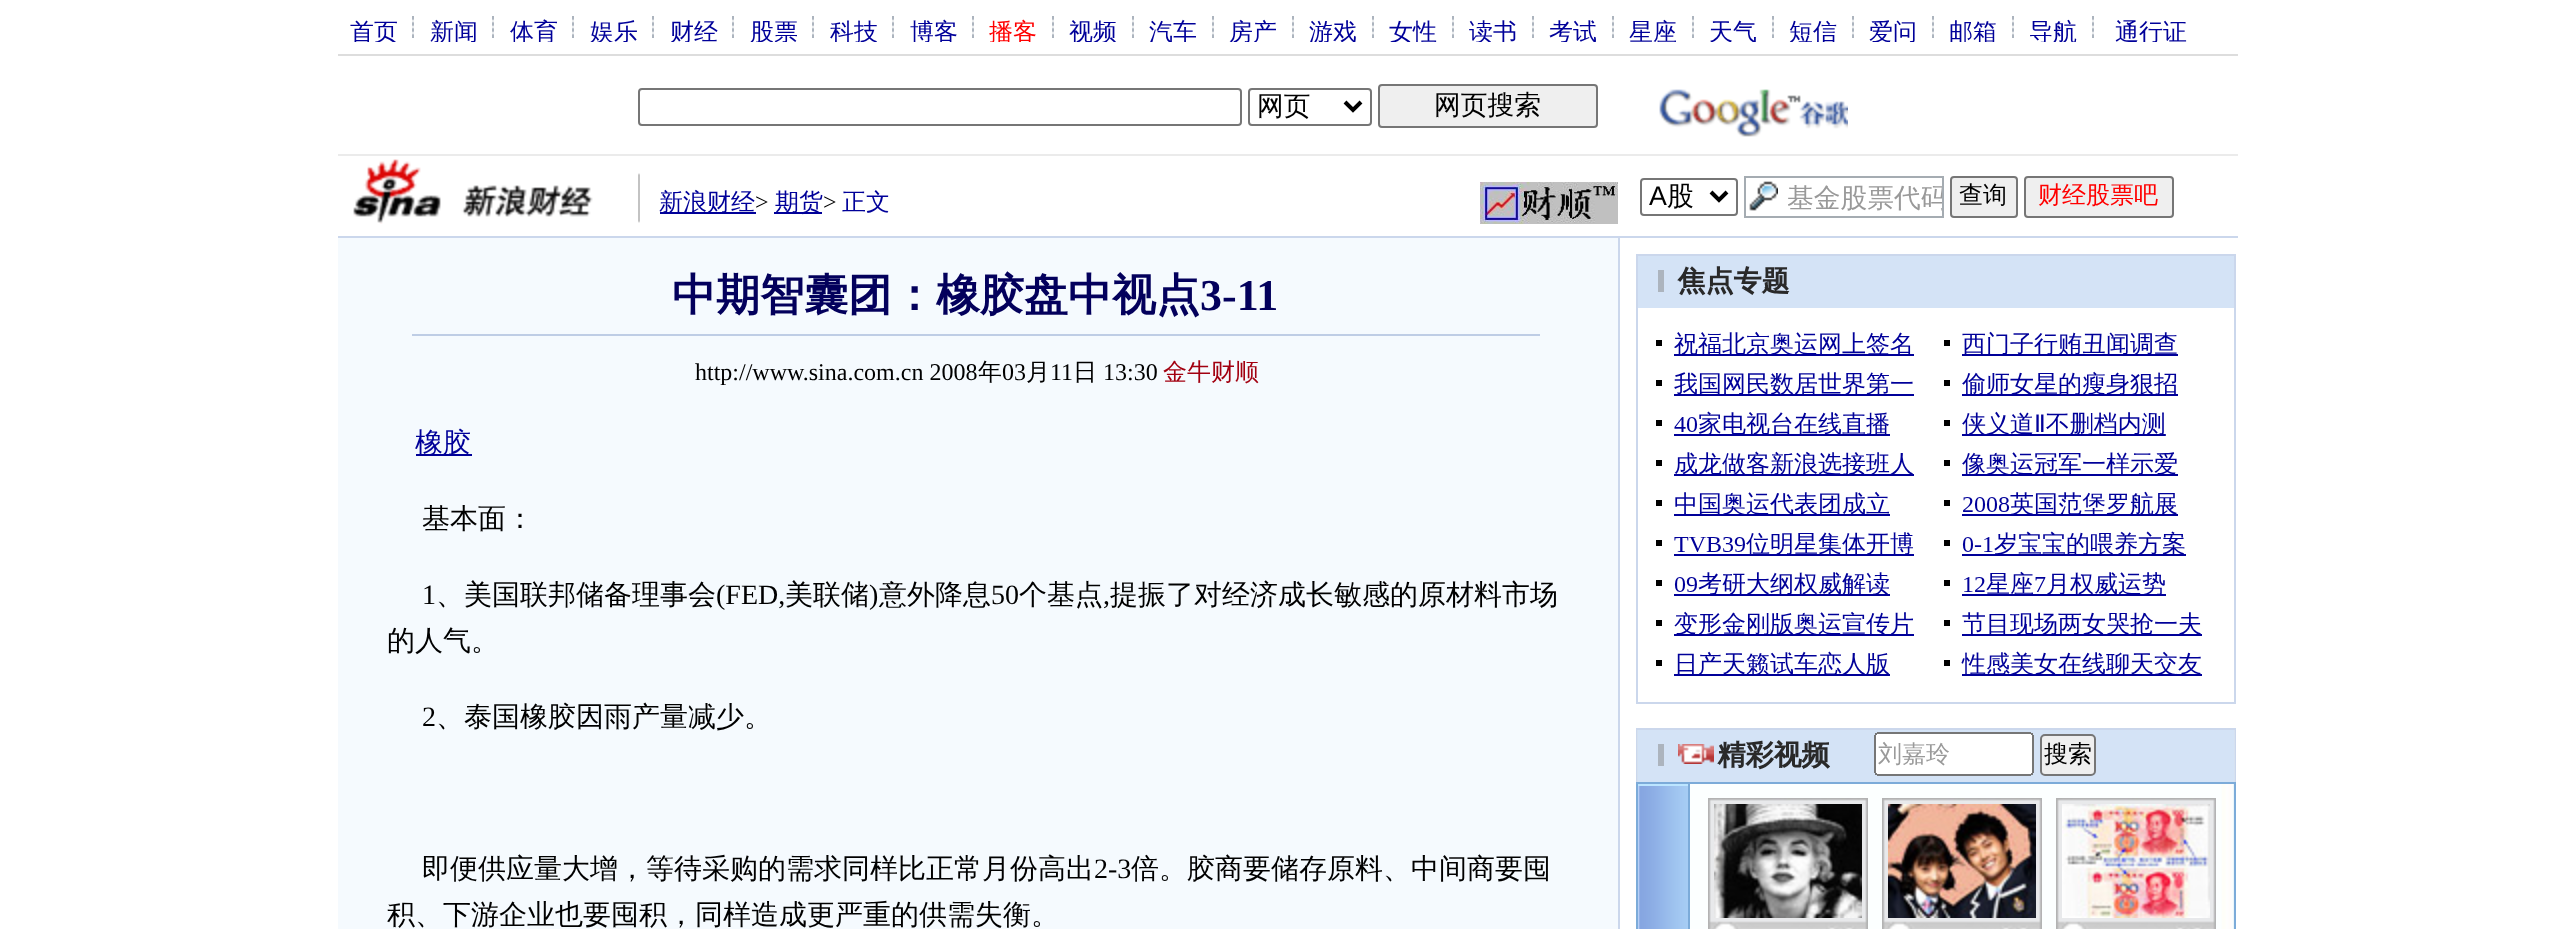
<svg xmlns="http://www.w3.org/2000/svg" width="2574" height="929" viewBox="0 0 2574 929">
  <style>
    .t1 { font: 500 24px WenQuanYi Zen Hei; fill: #009; }
    .t2 { font: 500 24px WenQuanYi Zen Hei; fill: #f00; }
    .t3 { font: 500 26.75px WenQuanYi Zen Hei; fill: #000; }
    .t4 { font: 24px Liberation Serif; fill: #000; }
    .t5 { font: 26.75px Liberation Sans; fill: #000; }
    .t6 { font: 500 26.75px WenQuanYi Zen Hei; fill: #999; }
    .t7 { font: 500 24px WenQuanYi Zen Hei; fill: #000; }
    .t8 { font: bold 44px WenQuanYi Zen Hei; fill: #03005c; }
    .t9 { font: bold 44px Liberation Serif; fill: #03005c; }
    .t10 { font: 500 24px WenQuanYi Zen Hei; fill: #a20010; }
    .t11 { font: 500 28px WenQuanYi Zen Hei; fill: #009; }
    .t12 { font: 500 28px WenQuanYi Zen Hei; fill: #000; }
    .t13 { font: 28px Liberation Serif; fill: #000; }
  </style>
  <defs>
    <clipPath id="clip1"><rect x="338" y="16" width="72" height="26"/></clipPath>
    <clipPath id="clip2"><rect x="416" y="16" width="74" height="26"/></clipPath>
    <clipPath id="clip3"><rect x="496" y="16" width="74" height="26"/></clipPath>
    <clipPath id="clip4"><rect x="576" y="16" width="74" height="26"/></clipPath>
    <clipPath id="clip5"><rect x="656" y="16" width="74" height="26"/></clipPath>
    <clipPath id="clip6"><rect x="736" y="16" width="74" height="26"/></clipPath>
    <clipPath id="clip7"><rect x="816" y="16" width="74" height="26"/></clipPath>
    <clipPath id="clip8"><rect x="896" y="16" width="74" height="26"/></clipPath>
    <clipPath id="clip9"><rect x="976" y="16" width="74" height="26"/></clipPath>
    <clipPath id="clip10"><rect x="1056" y="16" width="74" height="26"/></clipPath>
    <clipPath id="clip11"><rect x="1136" y="16" width="74" height="26"/></clipPath>
    <clipPath id="clip12"><rect x="1216" y="16" width="74" height="26"/></clipPath>
    <clipPath id="clip13"><rect x="1296" y="16" width="74" height="26"/></clipPath>
    <clipPath id="clip14"><rect x="1376" y="16" width="74" height="26"/></clipPath>
    <clipPath id="clip15"><rect x="1456" y="16" width="74" height="26"/></clipPath>
    <clipPath id="clip16"><rect x="1536" y="16" width="74" height="26"/></clipPath>
    <clipPath id="clip17"><rect x="1696" y="16" width="74" height="26"/></clipPath>
    <clipPath id="clip18"><rect x="1776" y="16" width="74" height="26"/></clipPath>
    <clipPath id="clip19"><rect x="1856" y="16" width="74" height="26"/></clipPath>
    <clipPath id="clip20"><rect x="1936" y="16" width="74" height="26"/></clipPath>
    <clipPath id="clip21"><rect x="2016" y="16" width="74" height="26"/></clipPath>
    <clipPath id="clip22"><rect x="2096" y="16" width="112" height="26"/></clipPath>
    <clipPath id="clip23"><rect x="1788" y="178" width="154" height="38"/></clipPath>
  </defs>
  <rect width="100%" height="100%" fill="#fff"/>
  <rect x="338" y="54" width="1900" height="2" fill="#ddd"/>
  <g clip-path="url(#clip1)">
    <text x="350" y="40" class="t1">首页</text>
  </g>
  <image x="412" y="16" width="2" height="22" href="images/1.png"/>
  <g clip-path="url(#clip2)">
    <text x="430" y="40" class="t1">新闻</text>
  </g>
  <image x="492" y="16" width="2" height="22" href="images/1.png"/>
  <g clip-path="url(#clip3)">
    <text x="510" y="40" class="t1">体育</text>
  </g>
  <image x="572" y="16" width="2" height="22" href="images/1.png"/>
  <g clip-path="url(#clip4)">
    <text x="590" y="40" class="t1">娱乐</text>
  </g>
  <image x="652" y="16" width="2" height="22" href="images/1.png"/>
  <g clip-path="url(#clip5)">
    <text x="670" y="40" class="t1">财经</text>
  </g>
  <image x="732" y="16" width="2" height="22" href="images/1.png"/>
  <g clip-path="url(#clip6)">
    <text x="750" y="40" class="t1">股票</text>
  </g>
  <image x="812" y="16" width="2" height="22" href="images/1.png"/>
  <g clip-path="url(#clip7)">
    <text x="830" y="40" class="t1">科技</text>
  </g>
  <image x="892" y="16" width="2" height="22" href="images/1.png"/>
  <g clip-path="url(#clip8)">
    <text x="910" y="40" class="t1">博客</text>
  </g>
  <image x="972" y="16" width="2" height="22" href="images/1.png"/>
  <g clip-path="url(#clip9)">
    <text x="989" y="40" class="t2">播客</text>
  </g>
  <image x="1052" y="16" width="2" height="22" href="images/1.png"/>
  <g clip-path="url(#clip10)">
    <text x="1069" y="40" class="t1">视频</text>
  </g>
  <image x="1132" y="16" width="2" height="22" href="images/1.png"/>
  <g clip-path="url(#clip11)">
    <text x="1149" y="40" class="t1">汽车</text>
  </g>
  <image x="1212" y="16" width="2" height="22" href="images/1.png"/>
  <g clip-path="url(#clip12)">
    <text x="1229" y="40" class="t1">房产</text>
  </g>
  <image x="1292" y="16" width="2" height="22" href="images/1.png"/>
  <g clip-path="url(#clip13)">
    <text x="1309" y="40" class="t1">游戏</text>
  </g>
  <image x="1372" y="16" width="2" height="22" href="images/1.png"/>
  <g clip-path="url(#clip14)">
    <text x="1389" y="40" class="t1">女性</text>
  </g>
  <image x="1452" y="16" width="2" height="22" href="images/1.png"/>
  <g clip-path="url(#clip15)">
    <text x="1469" y="40" class="t1">读书</text>
  </g>
  <image x="1532" y="16" width="2" height="22" href="images/1.png"/>
  <g clip-path="url(#clip16)">
    <text x="1549" y="40" class="t1">考试</text>
  </g>
  <image x="1612" y="16" width="2" height="22" href="images/1.png"/>
  <text x="1629" y="40" class="t1">星座</text>
  <image x="1692" y="16" width="2" height="22" href="images/1.png"/>
  <g clip-path="url(#clip17)">
    <text x="1709" y="40" class="t1">天气</text>
  </g>
  <image x="1772" y="16" width="2" height="22" href="images/1.png"/>
  <g clip-path="url(#clip18)">
    <text x="1789" y="40" class="t1">短信</text>
  </g>
  <image x="1852" y="16" width="2" height="22" href="images/1.png"/>
  <g clip-path="url(#clip19)">
    <text x="1869" y="40" class="t1">爱问</text>
  </g>
  <image x="1932" y="16" width="2" height="22" href="images/1.png"/>
  <g clip-path="url(#clip20)">
    <text x="1949" y="40" class="t1">邮箱</text>
  </g>
  <image x="2012" y="16" width="2" height="22" href="images/1.png"/>
  <g clip-path="url(#clip21)">
    <text x="2029" y="40" class="t1">导航</text>
  </g>
  <image x="2092" y="16" width="2" height="22" href="images/1.png"/>
  <g clip-path="url(#clip22)">
    <text x="2115" y="40" class="t1">通行证</text>
  </g>
  <rect x="338" y="154" width="1900" height="2" fill="#ebebeb"/>
  <rect x="639" y="89" width="602" height="36" rx="3" fill="none" stroke="#767676" stroke-width="2"/>
  <rect x="1249" y="89" width="122" height="36" rx="3" fill="none" stroke="#767676" stroke-width="2"/>
  <path d="M1345 102L1353 110L1361 102" fill="none" stroke="#000" stroke-width="4"/>
  <text x="1257" y="115" class="t3">网页</text>
  <rect x="1379" y="85" width="218" height="42" rx="3" fill="#efefef" stroke="#767676" stroke-width="2"/>
  <text x="1434" y="114" class="t3">网页搜索</text>
  <image x="1659" y="89" width="189" height="48" href="images/2.png"/>
  <image x="353" y="159" width="240" height="65" href="images/3.png"/>
  <image x="638" y="173" width="2" height="50" href="images/4.png"/>
  <rect x="660" y="212" width="96" height="2" fill="#009"/>
  <text x="659" y="210" class="t1">新浪财经</text>
  <text x="755" y="210" class="t4">&gt;</text>
  <rect x="774" y="212" width="48" height="2" fill="#009"/>
  <text x="775" y="210" class="t1">期货</text>
  <text x="823" y="210" class="t4">&gt;</text>
  <text x="842" y="210" class="t1">正文</text>
  <image x="1480" y="182" width="138" height="42" href="images/5.png"/>
  <rect x="1641" y="179" width="96" height="36" rx="3" fill="none" stroke="#767676" stroke-width="2"/>
  <path d="M1711 192L1719 200L1727 192" fill="none" stroke="#000" stroke-width="4"/>
  <text x="1649" y="205" class="t5">A</text>
  <text x="1667" y="205" class="t3">股</text>
  <image x="1749" y="181" width="29" height="30" href="images/6.png"/>
  <rect x="1745" y="177" width="198" height="40" fill="none" stroke="#a5acb2" stroke-width="2"/>
  <g clip-path="url(#clip23)">
    <text x="1787" y="207" class="t6">基金股票代码</text>
  </g>
  <rect x="1951" y="177" width="66" height="40" rx="3" fill="#efefef" stroke="#767676" stroke-width="2"/>
  <text x="1959" y="203" class="t7">查询</text>
  <rect x="2025" y="177" width="148" height="40" rx="3" fill="#efefef" stroke="#767676" stroke-width="2"/>
  <text x="2038" y="203" class="t2">财经股票吧</text>
  <rect x="338" y="236" width="1900" height="2" fill="#cbd7ec"/>
  <rect x="338" y="238" width="1280" height="691" fill="#f5fafe"/>
  <rect x="1618" y="238" width="2" height="691" fill="#cbd7ec"/>
  <rect x="412" y="334" width="1128" height="2" fill="#becde5"/>
  <text x="672" y="310" class="t8">中期智囊团：橡胶盘中视点</text>
  <text x="1200" y="310" class="t9">3-11</text>
  <text x="695" y="380" class="t4">http://www.sina.com.cn 2008</text>
  <text x="978" y="380" class="t7">年</text>
  <text x="1002" y="380" class="t4">03</text>
  <text x="1026" y="380" class="t7">月</text>
  <text x="1050" y="380" class="t4">11</text>
  <text x="1073" y="380" class="t7">日</text>
  <text x="1103" y="380" class="t4">13:30</text>
  <text x="1163" y="380" class="t10">金牛财顺</text>
  <rect x="416" y="454" width="56" height="2" fill="#009"/>
  <text x="415" y="452" class="t11">橡胶</text>
  <text x="422" y="528" class="t12">基本面：</text>
  <text x="422" y="604" class="t13">1</text>
  <text x="436" y="604" class="t12">、美国联邦储备理事会</text>
  <text x="716" y="604" class="t13">(FED,</text>
  <text x="785" y="604" class="t12">美联储</text>
  <text x="869" y="604" class="t13">)</text>
  <text x="879" y="604" class="t12">意外降息</text>
  <text x="991" y="604" class="t13">50</text>
  <text x="1019" y="604" class="t12">个基点</text>
  <text x="1103" y="604" class="t13">,</text>
  <text x="1110" y="604" class="t12">提振了对经济成长敏感的原材料市场</text>
  <text x="387" y="650" class="t12">的人气。</text>
  <text x="422" y="726" class="t13">2</text>
  <text x="436" y="726" class="t12">、泰国橡胶因雨产量减少。</text>
  <text x="422" y="878" class="t12">即便供应量大增，等待采购的需求同样比正常月份高出</text>
  <text x="1094" y="878" class="t13">2-3</text>
  <text x="1131" y="878" class="t12">倍。胶商要储存原料、中间商要囤</text>
  <text x="387" y="924" class="t12">积、下游企业也要囤积，同样造成更严重的供需失衡。</text>
  <image x="1636" y="254" width="600" height="450" href="images/7.png"/>
  <image x="1636" y="728" width="600" height="201" href="images/8.png"/>
</svg>
